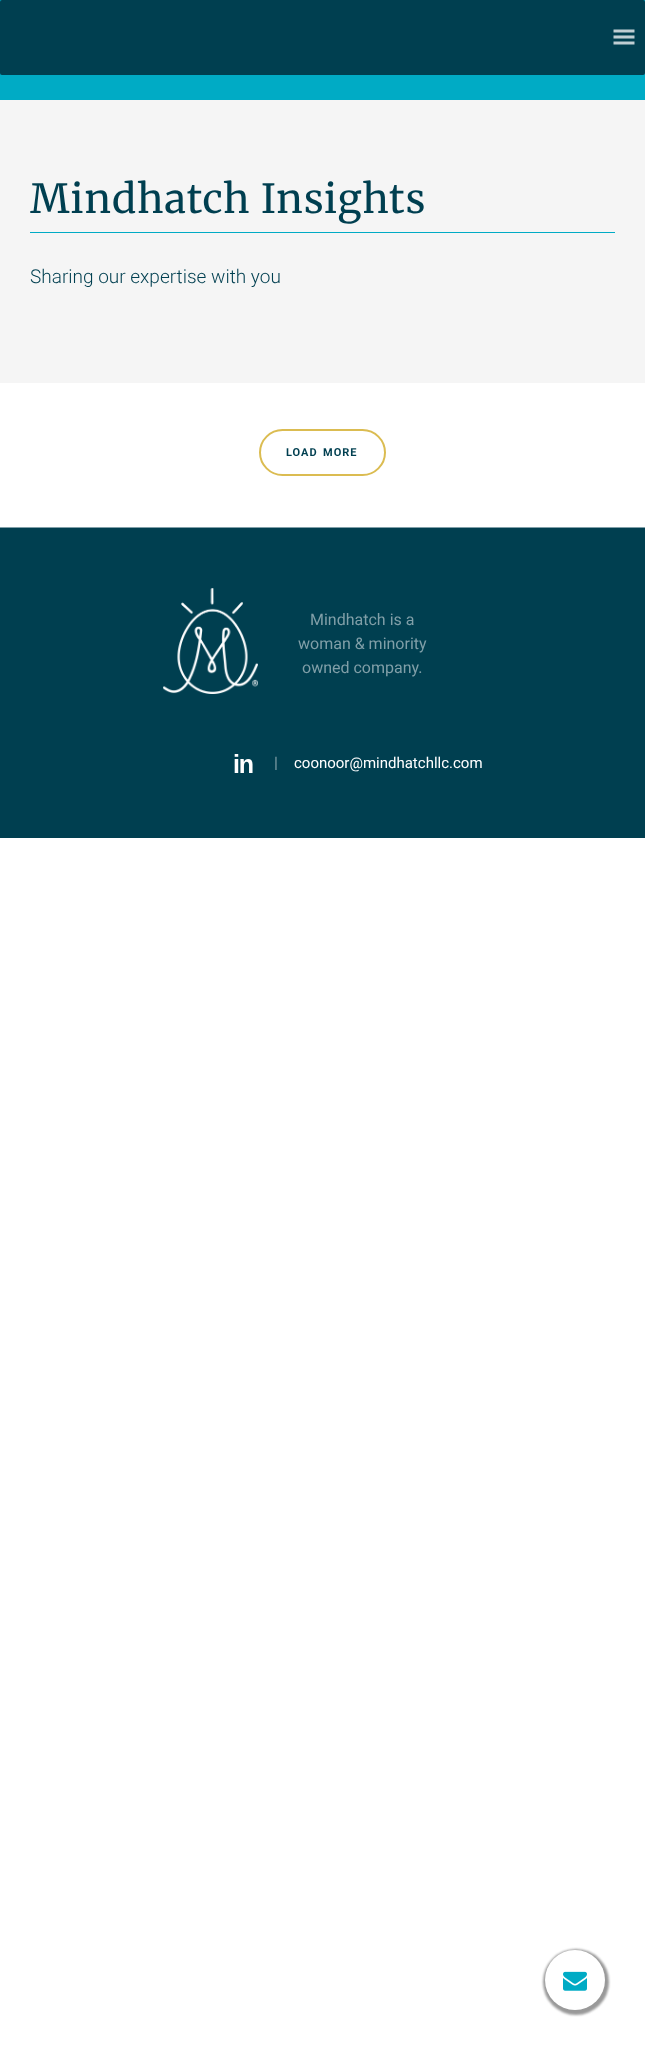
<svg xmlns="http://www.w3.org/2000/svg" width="645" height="2050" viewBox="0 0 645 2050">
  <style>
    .t1 { font: 40px Merriweather; letter-spacing: 1px; fill: #003f50; }
    .t2 { font: 300 19px Roboto; fill: #003f50; }
    .t3 { font: bold 11px Roboto; letter-spacing: 1px; fill: #003f50; }
    .t4 { font: 16px Roboto; fill: #809fa8; }
    .t5 { font: 15px Roboto; fill: #fff; }
  </style>
  <rect width="100%" height="100%" fill="#fff"/>
  <rect x="0" y="0" width="645" height="100" fill="#00abc5"/>
  <rect x="0" y="0" width="645" height="75" rx="2" fill="#003f50"/>
  <image x="613" y="29" width="22" height="16" href="images/1.png"/>
  <rect x="0" y="100" width="645" height="283" fill="#f5f5f5"/>
  <text x="30" y="213" class="t1">Mindhatch Insights</text>
  <rect x="30" y="232" width="585" height="1" fill="#00abc5"/>
  <text x="30" y="283" class="t2">Sharing our expertise with you</text>
  <rect x="260" y="430" width="125" height="45" rx="22.5" fill="none" stroke="#dbbc51" stroke-width="2"/>
  <text x="286" y="456" class="t3">LOAD</text>
  <text x="323" y="456" class="t3">MORE</text>
  <rect x="0" y="528" width="645" height="310" fill="#003f50"/>
  <rect x="0" y="527" width="645" height="1" fill="#809fa8"/>
  <image x="163" y="588" width="95" height="106" href="images/2.png"/>
  <text x="310" y="625" class="t4">Mindhatch is a</text>
  <text x="298" y="649" class="t4">woman &amp; minority</text>
  <text x="302" y="673" class="t4">owned company.</text>
  <image x="234" y="754" width="19" height="19" href="images/3.png"/>
  <text x="274" y="768" class="t4">|</text>
  <text x="294" y="768" class="t5">coonoor@mindhatchllc.com</text>
  <rect x="543" y="1949" width="66" height="66" rx="33" fill="#999" filter="blur(1px)"/>
  <circle cx="575" cy="1980" r="30" fill="#fff"/>
  <image x="563" y="1971" width="24" height="20" href="images/4.png"/>
</svg>
